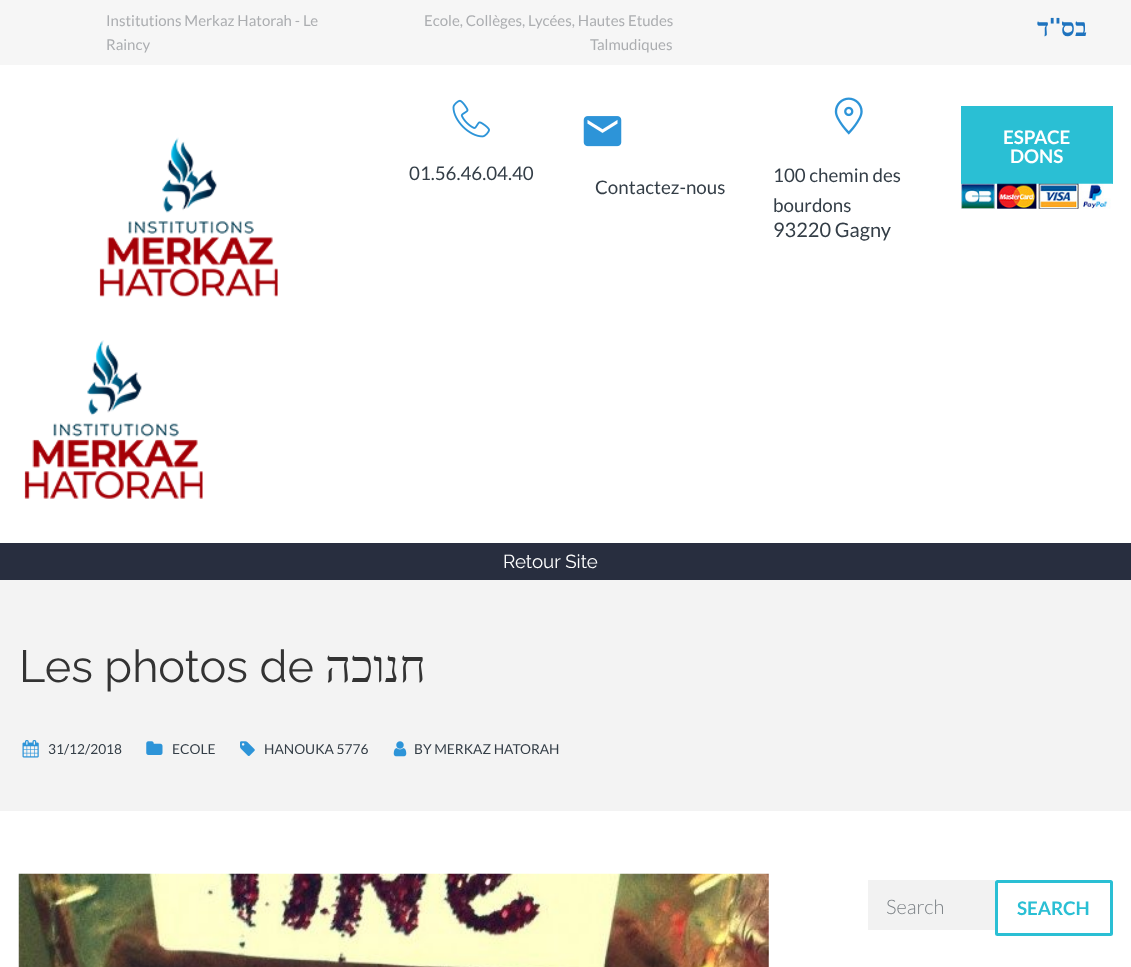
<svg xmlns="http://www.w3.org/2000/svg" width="1131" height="967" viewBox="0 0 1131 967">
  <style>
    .t1 { font: 15px Lato; fill: #acaeb1; }
    .t2 { font: bold 25px Liberation Serif; direction: rtl; fill: #1e73be; }
    .t3 { font: bold 25px Raleway; direction: rtl; fill: #1e73be; }
    .t4 { font: 18.75px Lato; fill: #343e47; }
    .t5 { font: 20px Lato; fill: #343e47; }
    .t6 { font: bold 18.75px Lato; fill: #fff; }
    .t7 { font: 18.75px Raleway; fill: #fff; }
    .t8 { font: 45px Raleway; fill: #333; }
    .t9 { font: 45px Liberation Serif; direction: rtl; fill: #333; }
    .t10 { font: 13.75px Lato; fill: #343e47; }
    .t11 { font: 300 20px Lato; fill: #7b8085; }
    .t12 { font: bold 18.75px Lato; fill: #2abfd4; }
  </style>
  <rect width="100%" height="100%" fill="#fff"/>
  <rect x="0" y="0" width="1131" height="65" fill="#f6f6f6"/>
  <text x="106" y="26" class="t1">Institutions Merkaz Hatorah - Le</text>
  <text x="106" y="50" class="t1">Raincy</text>
  <text x="424" y="26" class="t1">Ecole, Collèges, Lycées, Hautes Etudes</text>
  <text x="590" y="50" class="t1">Talmudiques</text>
  <text x="1049" y="36" class="t2">ד</text>
  <text x="1061" y="36" class="t3">''</text>
  <text x="1087" y="36" class="t2">בס</text>
  <image x="99" y="137" width="179" height="160" href="images/1.png"/>
  <image x="24" y="340" width="179" height="159" href="images/2.png"/>
  <image x="452" y="99" width="38" height="39" href="images/3.png"/>
  <text x="409" y="180" class="t4">01.56.46.04.40</text>
  <image x="583" y="116" width="39" height="31" href="images/4.png"/>
  <text x="595" y="194" class="t4">Contactez-nous</text>
  <image x="834" y="97" width="29" height="38" href="images/5.png"/>
  <text x="773" y="182" class="t4">100 chemin des</text>
  <text x="773" y="212" class="t4">bourdons</text>
  <text x="773" y="237" class="t5">93220 Gagny</text>
  <rect x="961" y="106" width="152" height="78" fill="#2abfd4"/>
  <text x="1003" y="144" class="t6">ESPACE</text>
  <text x="1010" y="163" class="t6">DONS</text>
  <image x="961" y="183" width="152" height="26" href="images/6.png"/>
  <rect x="0" y="543" width="1131" height="37" fill="#282e3f"/>
  <text x="503" y="568" class="t7">Retour Site</text>
  <rect x="0" y="580" width="1131" height="231" fill="#f3f3f3"/>
  <text x="19" y="682" class="t8">Les photos de</text>
  <text x="426" y="682" class="t9">חנוכה</text>
  <image x="22" y="740" width="17" height="18" href="images/7.png"/>
  <text x="48" y="754" class="t10">31/12/2018</text>
  <image x="146" y="741" width="17" height="14" href="images/8.png"/>
  <text x="172" y="754" class="t10">ECOLE</text>
  <image x="240" y="741" width="15" height="15" href="images/9.png"/>
  <text x="264" y="754" class="t10">HANOUKA 5776</text>
  <image x="393" y="741" width="14" height="16" href="images/10.png"/>
  <text x="414" y="754" class="t10">BY MERKAZ HATORAH</text>
  <image x="18" y="873" width="751" height="94" href="images/11.png"/>
  <rect x="868" y="880" width="127" height="50" fill="#f2f2f2"/>
  <text x="886" y="914" class="t11">Search</text>
  <rect x="996.5" y="881.5" width="115" height="53" rx="1" fill="none" stroke="#2abfd4" stroke-width="3"/>
  <text x="1017" y="915" class="t12">SEARCH</text>
</svg>
